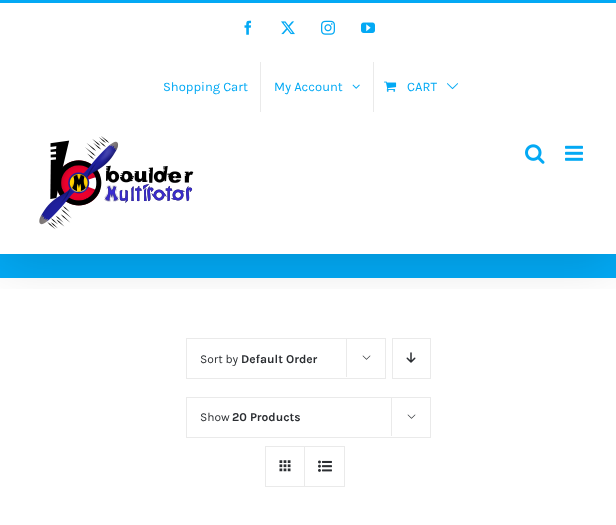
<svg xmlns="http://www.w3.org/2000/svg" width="616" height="525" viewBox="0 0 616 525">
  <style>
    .t1 { font: 13px Karla; fill: #03a9f4; }
    .t2 { font: 12px Karla; fill: #2b2e32; }
    .t3 { font: bold 12px Karla; fill: #2b2e32; }
  </style>
  <defs>
    <clipPath id="clip1"><rect x="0" y="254" width="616" height="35"/></clipPath>
  </defs>
  <rect width="100%" height="100%" fill="#fff"/>
  <rect x="0" y="254" width="616" height="24" fill="#03a9f4"/>
  <g clip-path="url(#clip1)">
    <rect x="2" y="12" width="612" height="250" fill="#00000024" filter="blur(25px)"/>
  </g>
  <rect x="0" y="0" width="616" height="3" fill="#03a9f4"/>
  <image x="244" y="20" width="8" height="15" href="images/1.png"/>
  <image x="281" y="21" width="14" height="14" href="images/2.png"/>
  <image x="321" y="20" width="14" height="15" href="images/3.png"/>
  <image x="361" y="22" width="14" height="11" href="images/4.png"/>
  <text x="163" y="91" class="t1">Shopping Cart</text>
  <rect x="260" y="62" width="1" height="50" fill="#eaeaea"/>
  <text x="274" y="91" class="t1">My Account</text>
  <image x="352" y="84" width="8" height="5" href="images/5.png"/>
  <rect x="373" y="62" width="1" height="50" fill="#eaeaea"/>
  <image x="384" y="81" width="13" height="11" href="images/6.png"/>
  <text x="407" y="91" class="t1">CART</text>
  <image x="447" y="83" width="11" height="7" href="images/7.png"/>
  <image x="39" y="136" width="155" height="94" href="images/8.png"/>
  <image x="525" y="144" width="20" height="20" href="images/9.png"/>
  <image x="565" y="145" width="18" height="16" href="images/10.png"/>
  <rect x="186.5" y="338.5" width="199" height="40" fill="none" stroke="#eaeaea"/>
  <text x="200" y="363" class="t2">Sort by</text>
  <text x="241" y="363" class="t3">Default Order</text>
  <rect x="346" y="338" width="1" height="39" fill="#eaeaea"/>
  <image x="362" y="355" width="9" height="5" href="images/11.png"/>
  <rect x="392.5" y="338.5" width="38" height="40" fill="none" stroke="#eaeaea"/>
  <image x="406" y="352" width="10" height="11" href="images/12.png"/>
  <rect x="186.5" y="397.5" width="244" height="40" fill="none" stroke="#eaeaea"/>
  <text x="200" y="421" class="t2">Show</text>
  <text x="232" y="421" class="t3">20 Products</text>
  <rect x="391" y="397" width="1" height="39" fill="#eaeaea"/>
  <image x="407" y="414" width="9" height="5" href="images/11.png"/>
  <rect x="265.5" y="446.5" width="79" height="40" fill="none" stroke="#eaeaea"/>
  <rect x="304" y="447" width="1" height="39" fill="#eaeaea"/>
  <image x="279" y="460" width="12" height="12" href="images/13.png"/>
  <image x="318" y="460" width="14" height="12" href="images/14.png"/>
</svg>
